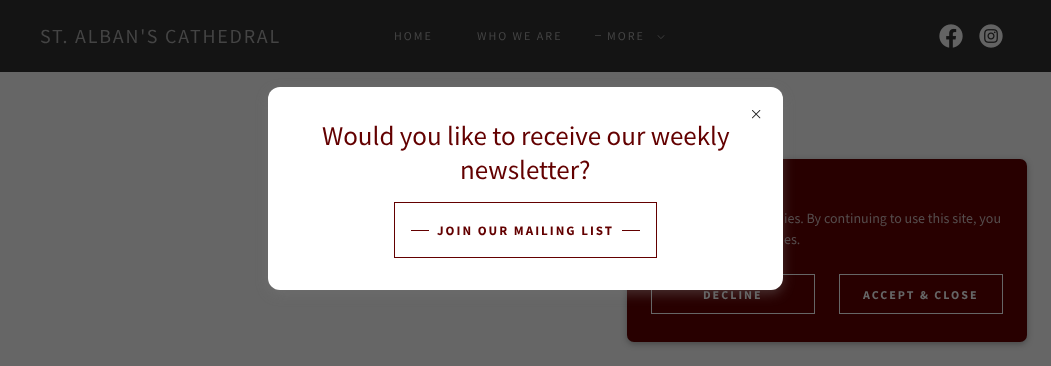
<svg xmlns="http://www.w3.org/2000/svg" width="1051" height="366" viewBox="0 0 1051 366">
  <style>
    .t1 { font: 20px Source Sans Pro; letter-spacing: 1.8px; fill: #444; }
    .t2 { font: 12px Source Sans Pro; letter-spacing: 2px; fill: #444; }
    .t3 { font: 27px Source Sans Pro; fill: #630000; }
    .t4 { font: bold 13px Source Sans Pro; letter-spacing: 2px; fill: #630000; }
    .t5 { font: 14px Source Sans Pro; fill: #554c4c; }
    .t6 { font: bold 12px Source Sans Pro; letter-spacing: 2px; fill: #666; }
  </style>
  <rect width="100%" height="100%" fill="#666"/>
  <rect x="0" y="0" width="1051" height="72" fill="#141414"/>
  <text x="40" y="43" class="t1">ST. ALBAN'S CATHEDRAL</text>
  <text x="394" y="40" class="t2">HOME</text>
  <text x="477" y="40" class="t2">WHO WE ARE</text>
  <rect x="595" y="35" width="6" height="1" fill="#373737"/>
  <text x="607" y="40" class="t2">MORE</text>
  <image x="657" y="35" width="8" height="4" href="images/1.png"/>
  <image x="939" y="24" width="24" height="24" href="images/2.png"/>
  <image x="979" y="24" width="24" height="24" href="images/3.png"/>
  <rect x="627" y="161" width="400" height="183" rx="7" fill="#0000004d" filter="blur(3px)"/>
  <rect x="627" y="159" width="400" height="183" rx="7" fill="#280000"/>
  <rect x="651.5" y="274.5" width="163" height="39" fill="none" stroke="#666"/>
  <rect x="268" y="91" width="515" height="203" rx="12" fill="#75757566" filter="blur(6px)"/>
  <rect x="268" y="87" width="515" height="203" rx="12" fill="#fff"/>
  <image x="752" y="110" width="9" height="9" href="images/4.png"/>
  <text x="322" y="145" class="t3">Would you like to receive our weekly</text>
  <text x="460" y="179" class="t3">newsletter?</text>
  <rect x="394.5" y="202.5" width="262" height="55" fill="none" stroke="#630000"/>
  <rect x="411" y="230" width="18" height="1" fill="#630000"/>
  <text x="437" y="235" class="t4">JOIN OUR MAILING LIST</text>
  <rect x="622" y="230" width="18" height="1" fill="#630000"/>
  <text x="784" y="223" class="t5">ies. By continuing to use this site, you</text>
  <text x="784" y="244" class="t5">es.</text>
  <text x="703" y="299" class="t6">DECLINE</text>
  <rect x="839.5" y="274.5" width="163" height="39" fill="none" stroke="#666"/>
  <text x="863" y="299" class="t6">ACCEPT &amp; CLOSE</text>
</svg>
